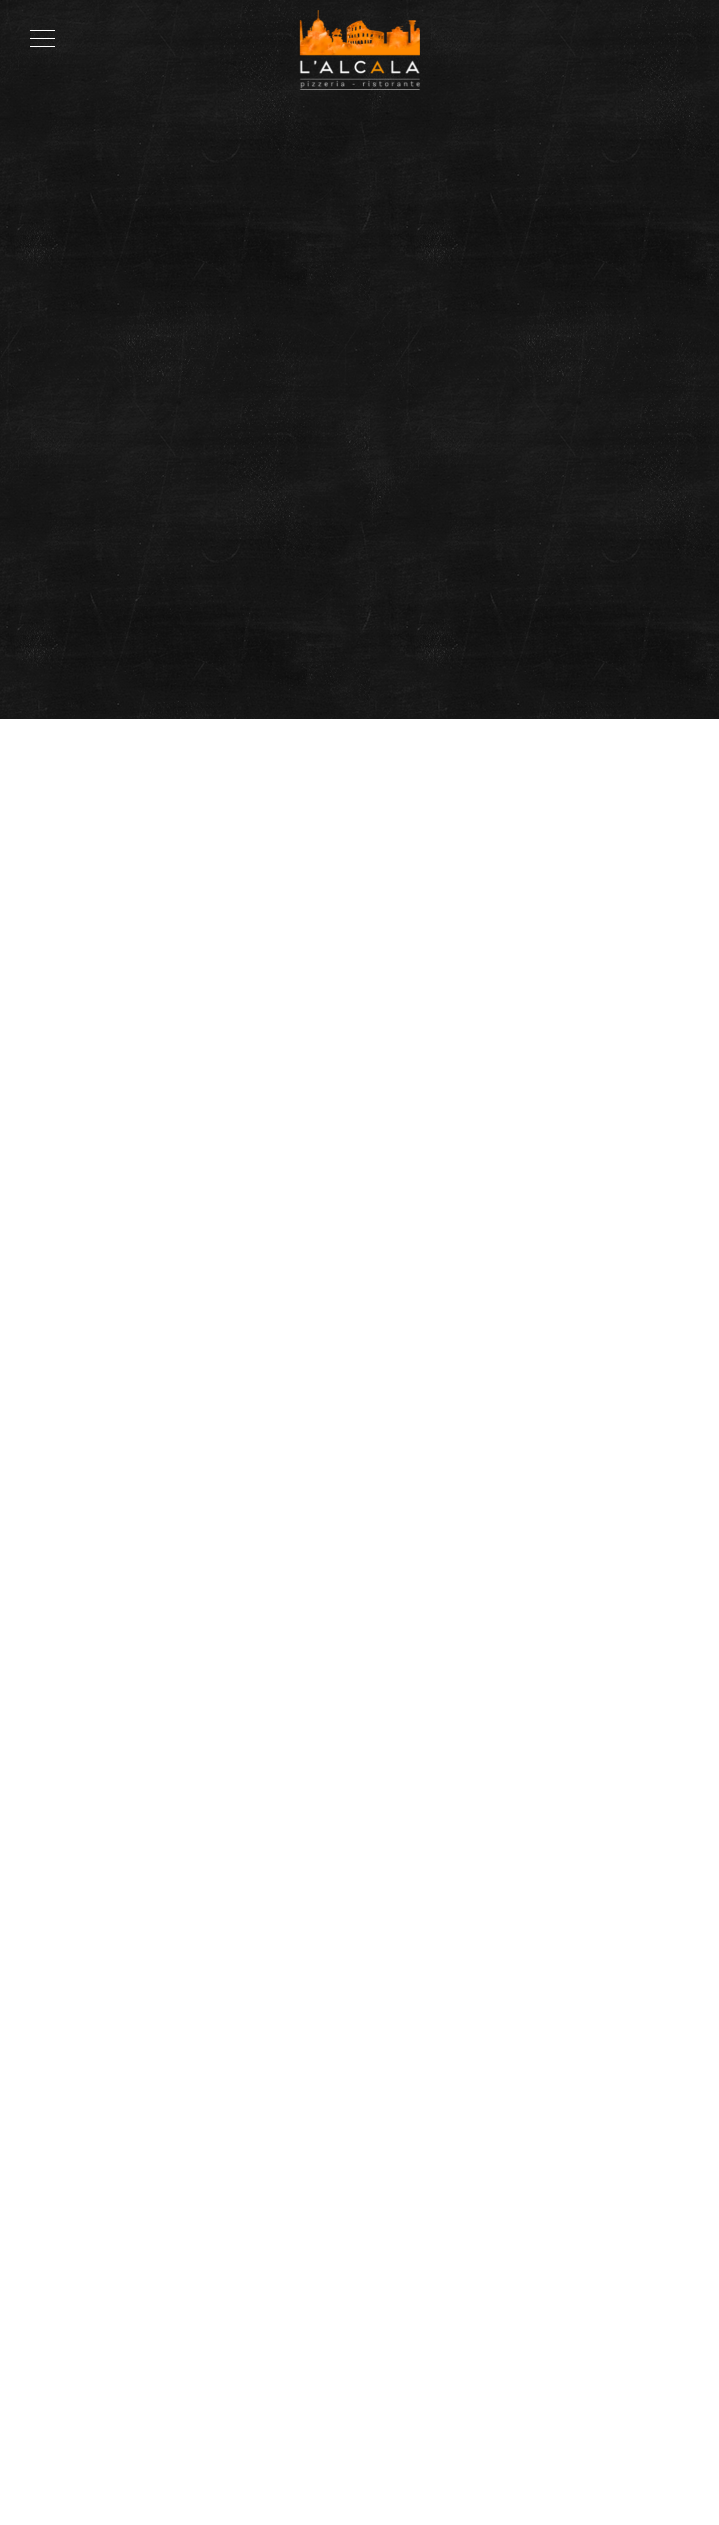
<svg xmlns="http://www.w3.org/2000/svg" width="719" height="2525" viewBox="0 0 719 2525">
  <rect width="100%" height="100%" fill="#fff"/>
  <rect x="0" y="0" width="719" height="719" fill="#111"/>
  <image x="0" y="0" width="719" height="719" href="images/1.png"/>
  <rect x="30" y="30" width="25" height="1" fill="#fff"/>
  <rect x="30" y="38" width="25" height="1" fill="#fff"/>
  <rect x="30" y="46" width="25" height="1" fill="#fff"/>
  <image x="299" y="10" width="121" height="80" href="images/2.png"/>
</svg>
